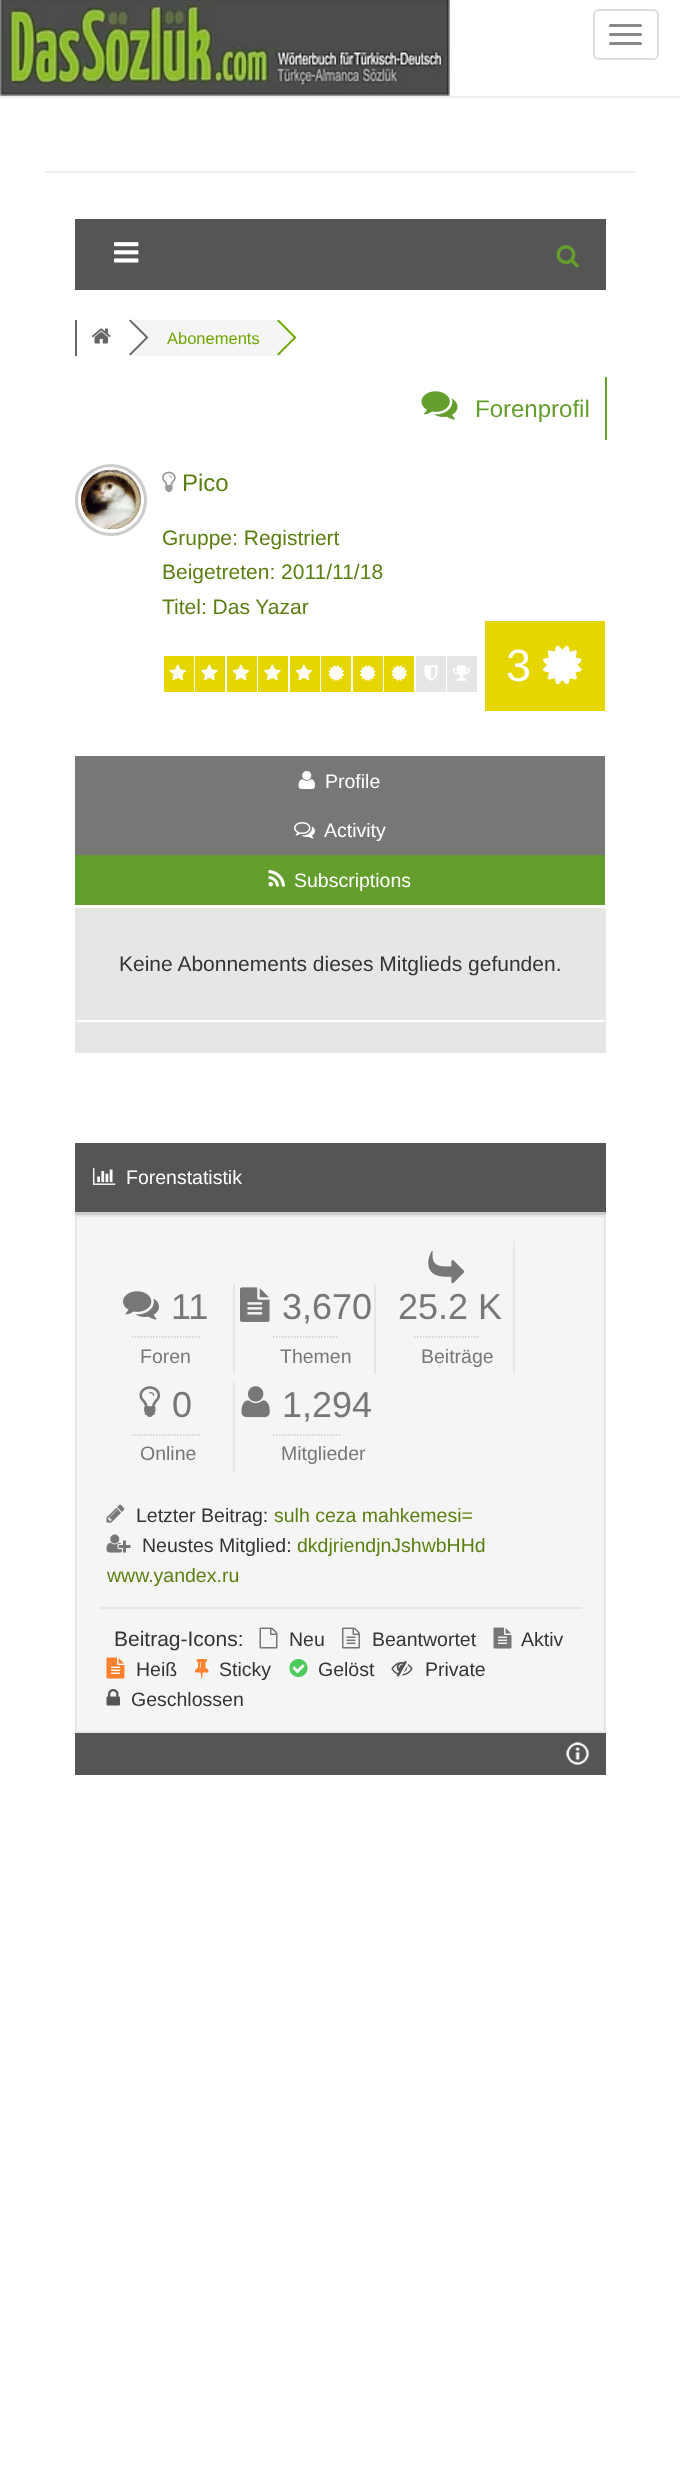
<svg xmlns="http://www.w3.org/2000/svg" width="680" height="2483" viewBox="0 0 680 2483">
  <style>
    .t1 { font: 16.5px Liberation Sans; fill: #6ea500; }
    .t2 { font: 24px Liberation Sans; fill: #649e2d; }
    .t3 { font: 24px Liberation Sans; fill: #5a7f10; }
    .t4 { font: 21px Liberation Sans; fill: #5a7f10; }
    .t5 { font: 45px Liberation Sans; fill: #fff; }
    .t6 { font: 19.5px Liberation Sans; fill: #fff; }
    .t7 { font: 21px Liberation Sans; fill: #333; }
    .t8 { font: 36px Liberation Sans; fill: #777; }
    .t9 { font: 19.5px Liberation Sans; fill: #777; }
    .t10 { font: 19.5px Liberation Sans; fill: #333; }
    .t11 { font: 19.5px Liberation Sans; fill: #5a7f10; }
  </style>
  <rect width="100%" height="100%" fill="#fff"/>
  <rect x="0" y="96" width="680" height="2" fill="#eee"/>
  <image x="0" y="0" width="450" height="96" href="images/1.png"/>
  <rect x="594" y="10" width="64" height="49" rx="5" fill="none" stroke="#ddd" stroke-width="2"/>
  <rect x="609" y="24" width="33" height="3" rx="1.5" fill="#888"/>
  <rect x="609" y="33" width="33" height="3" rx="1.5" fill="#888"/>
  <rect x="609" y="42" width="33" height="3" rx="1.5" fill="#888"/>
  <rect x="45" y="171" width="591" height="2" fill="#eee"/>
  <rect x="75" y="219" width="531" height="71" fill="#555"/>
  <image x="114" y="242" width="25" height="21" href="images/2.png"/>
  <image x="556" y="245" width="23" height="23" href="images/3.png"/>
  <rect x="75" y="320" width="2" height="36" fill="#666"/>
  <image x="91" y="328" width="20" height="16" href="images/4.png"/>
  <rect x="134" y="320" width="148" height="36" fill="#f5f5f5"/>
  <path d="M130.5 319.5L129 321L145.5 337.5L129 354L130.5 355.5L148.5 337.5Z" fill="#666"/>
  <path d="M127.5 319.5L145.5 337.5L127.5 355.5L109.5 337.5Z" fill="#fff"/>
  <text x="167" y="344" class="t1">Abonements</text>
  <path d="M278.5 319.5L277 321L293.5 337.5L277 354L278.5 355.5L296.5 337.5Z" fill="#6ea500"/>
  <path d="M275.5 319.5L293.5 337.5L275.5 355.5L258 337.5Z" fill="#f5f5f5"/>
  <rect x="605" y="377" width="2" height="63" fill="#649e2d"/>
  <image x="421" y="391" width="37" height="29" href="images/5.png"/>
  <text x="475" y="417" class="t2">Forenprofil</text>
  <circle cx="111" cy="500" r="34.5" fill="none" stroke="#ccc" stroke-width="3"/>
  <image x="81" y="469" width="60" height="61" href="images/6.png"/>
  <image x="162" y="471" width="14" height="22" href="images/7.png"/>
  <text x="182" y="491" class="t3">Pico</text>
  <text x="162" y="545" class="t4">Gruppe: Registriert</text>
  <text x="162" y="579" class="t4">Beigetreten: 2011/11/18</text>
  <text x="162" y="614" class="t4">Titel: Das Yazar</text>
  <rect x="164" y="656" width="30" height="36" fill="#e5d600"/>
  <image x="169" y="664" width="18" height="17" href="images/8.png"/>
  <rect x="195" y="656" width="30" height="36" fill="#e5d600"/>
  <image x="201" y="664" width="17" height="17" href="images/9.png"/>
  <rect x="227" y="656" width="30" height="36" fill="#e5d600"/>
  <image x="232" y="664" width="18" height="17" href="images/8.png"/>
  <rect x="258" y="656" width="30" height="36" fill="#e5d600"/>
  <image x="264" y="664" width="17" height="17" href="images/9.png"/>
  <rect x="290" y="656" width="30" height="36" fill="#e5d600"/>
  <image x="295" y="664" width="18" height="17" href="images/8.png"/>
  <rect x="321" y="656" width="30" height="36" fill="#e5d600"/>
  <image x="328" y="665" width="16" height="16" href="images/10.png"/>
  <rect x="353" y="656" width="30" height="36" fill="#e5d600"/>
  <image x="360" y="665" width="16" height="16" href="images/11.png"/>
  <rect x="384" y="656" width="30" height="36" fill="#e5d600"/>
  <image x="391" y="665" width="16" height="16" href="images/10.png"/>
  <rect x="416" y="656" width="30" height="36" fill="#e6e6e6"/>
  <image x="424" y="665" width="14" height="16" href="images/12.png"/>
  <rect x="447" y="656" width="30" height="36" fill="#e6e6e6"/>
  <image x="453" y="665" width="17" height="16" href="images/13.png"/>
  <rect x="485" y="621" width="120" height="90" fill="#e5d600"/>
  <text x="506" y="681" class="t5">3</text>
  <image x="543" y="645" width="39" height="40" href="images/14.png"/>
  <rect x="75" y="756" width="530" height="99" fill="#777"/>
  <image x="298" y="771" width="17" height="18" href="images/15.png"/>
  <text x="325" y="788" class="t6">Profile</text>
  <image x="294" y="822" width="21" height="17" href="images/16.png"/>
  <text x="324" y="837" class="t6">Activity</text>
  <rect x="75" y="855" width="530" height="50" fill="#649e2d"/>
  <image x="268" y="870" width="17" height="17" href="images/17.png"/>
  <text x="294" y="887" class="t6">Subscriptions</text>
  <rect x="75" y="908" width="531" height="145" fill="#e6e6e6"/>
  <text x="119" y="971" class="t7">Keine Abonnements dieses Mitglieds gefunden.</text>
  <rect x="77" y="1020" width="528" height="2" fill="#fff"/>
  <rect x="75" y="1143" width="531" height="69" fill="#555"/>
  <rect x="75" y="1212" width="531" height="3" fill="#ccc"/>
  <image x="93" y="1168" width="23" height="17" href="images/18.png"/>
  <text x="126" y="1184" class="t6">Forenstatistik</text>
  <rect x="76" y="1216" width="529" height="516" fill="#f5f5f5" stroke="#e6e6e6" stroke-width="2"/>
  <rect x="233" y="1284" width="2" height="90" fill="#e6e6e6"/>
  <image x="123" y="1291" width="36" height="29" href="images/19.png"/>
  <text x="171" y="1319" class="t8">11</text>
  <path d="M132 1337H199.5" fill="none" stroke="#ccc" stroke-width="1.5" stroke-dasharray="1.5 1.5"/>
  <text x="140" y="1363" class="t9">Foren</text>
  <rect x="374" y="1284" width="2" height="90" fill="#e6e6e6"/>
  <image x="240" y="1287" width="30" height="35" href="images/20.png"/>
  <text x="282" y="1319" class="t8">3,670</text>
  <path d="M273 1337H339" fill="none" stroke="#ccc" stroke-width="1.5" stroke-dasharray="1.5 1.5"/>
  <text x="280" y="1363" class="t9">Themen</text>
  <rect x="513" y="1241" width="2" height="133" fill="#e6e6e6"/>
  <image x="428" y="1251" width="37" height="33" href="images/21.png"/>
  <text x="398" y="1319" class="t8">25.2 K</text>
  <path d="M414 1337H480" fill="none" stroke="#ccc" stroke-width="1.5" stroke-dasharray="1.5 1.5"/>
  <text x="421" y="1363" class="t9">Beiträge</text>
  <rect x="233" y="1382" width="2" height="90" fill="#e6e6e6"/>
  <image x="139" y="1386" width="22" height="31" href="images/22.png"/>
  <text x="172" y="1417" class="t8">0</text>
  <path d="M132 1435H199.5" fill="none" stroke="#ccc" stroke-width="1.5" stroke-dasharray="1.5 1.5"/>
  <text x="140" y="1460" class="t9">Online</text>
  <image x="241" y="1386" width="29" height="32" href="images/23.png"/>
  <text x="282" y="1417" class="t8">1,294</text>
  <path d="M273 1435H340.5" fill="none" stroke="#ccc" stroke-width="1.5" stroke-dasharray="1.5 1.5"/>
  <text x="281" y="1460" class="t9">Mitglieder</text>
  <image x="106" y="1504" width="19" height="19" href="images/24.png"/>
  <text x="136" y="1522" class="t10">Letzter Beitrag:</text>
  <text x="274" y="1522" class="t11">sulh ceza mahkemesi=</text>
  <image x="106" y="1534" width="25" height="19" href="images/25.png"/>
  <text x="142" y="1552" class="t10">Neustes Mitglied:</text>
  <text x="297" y="1552" class="t11">dkdjriendjnJshwbHHd</text>
  <text x="107" y="1582" class="t11">www.yandex.ru</text>
  <rect x="99" y="1607" width="483" height="2" fill="#e6e6e6"/>
  <text x="114" y="1646" class="t7">Beitrag-Icons:</text>
  <image x="259" y="1627" width="19" height="22" href="images/26.png"/>
  <text x="289" y="1646" class="t10">Neu</text>
  <image x="342" y="1627" width="18" height="22" href="images/27.png"/>
  <text x="372" y="1646" class="t10">Beantwortet</text>
  <image x="493" y="1627" width="19" height="22" href="images/28.png"/>
  <text x="521" y="1646" class="t10">Aktiv</text>
  <image x="106" y="1657" width="19" height="22" href="images/29.png"/>
  <text x="136" y="1676" class="t10">Heiß</text>
  <image x="195" y="1659" width="14" height="20" href="images/30.png"/>
  <text x="219" y="1676" class="t10">Sticky</text>
  <image x="289" y="1659" width="19" height="18" href="images/31.png"/>
  <text x="318" y="1676" class="t10">Gelöst</text>
  <image x="391" y="1660" width="22" height="17" href="images/32.png"/>
  <text x="425" y="1676" class="t10">Private</text>
  <image x="106" y="1689" width="14" height="17" href="images/33.png"/>
  <text x="131" y="1706" class="t10">Geschlossen</text>
  <rect x="75" y="1733" width="531" height="42" fill="#555"/>
  <image x="566" y="1742" width="24" height="24" href="images/34.png"/>
</svg>
